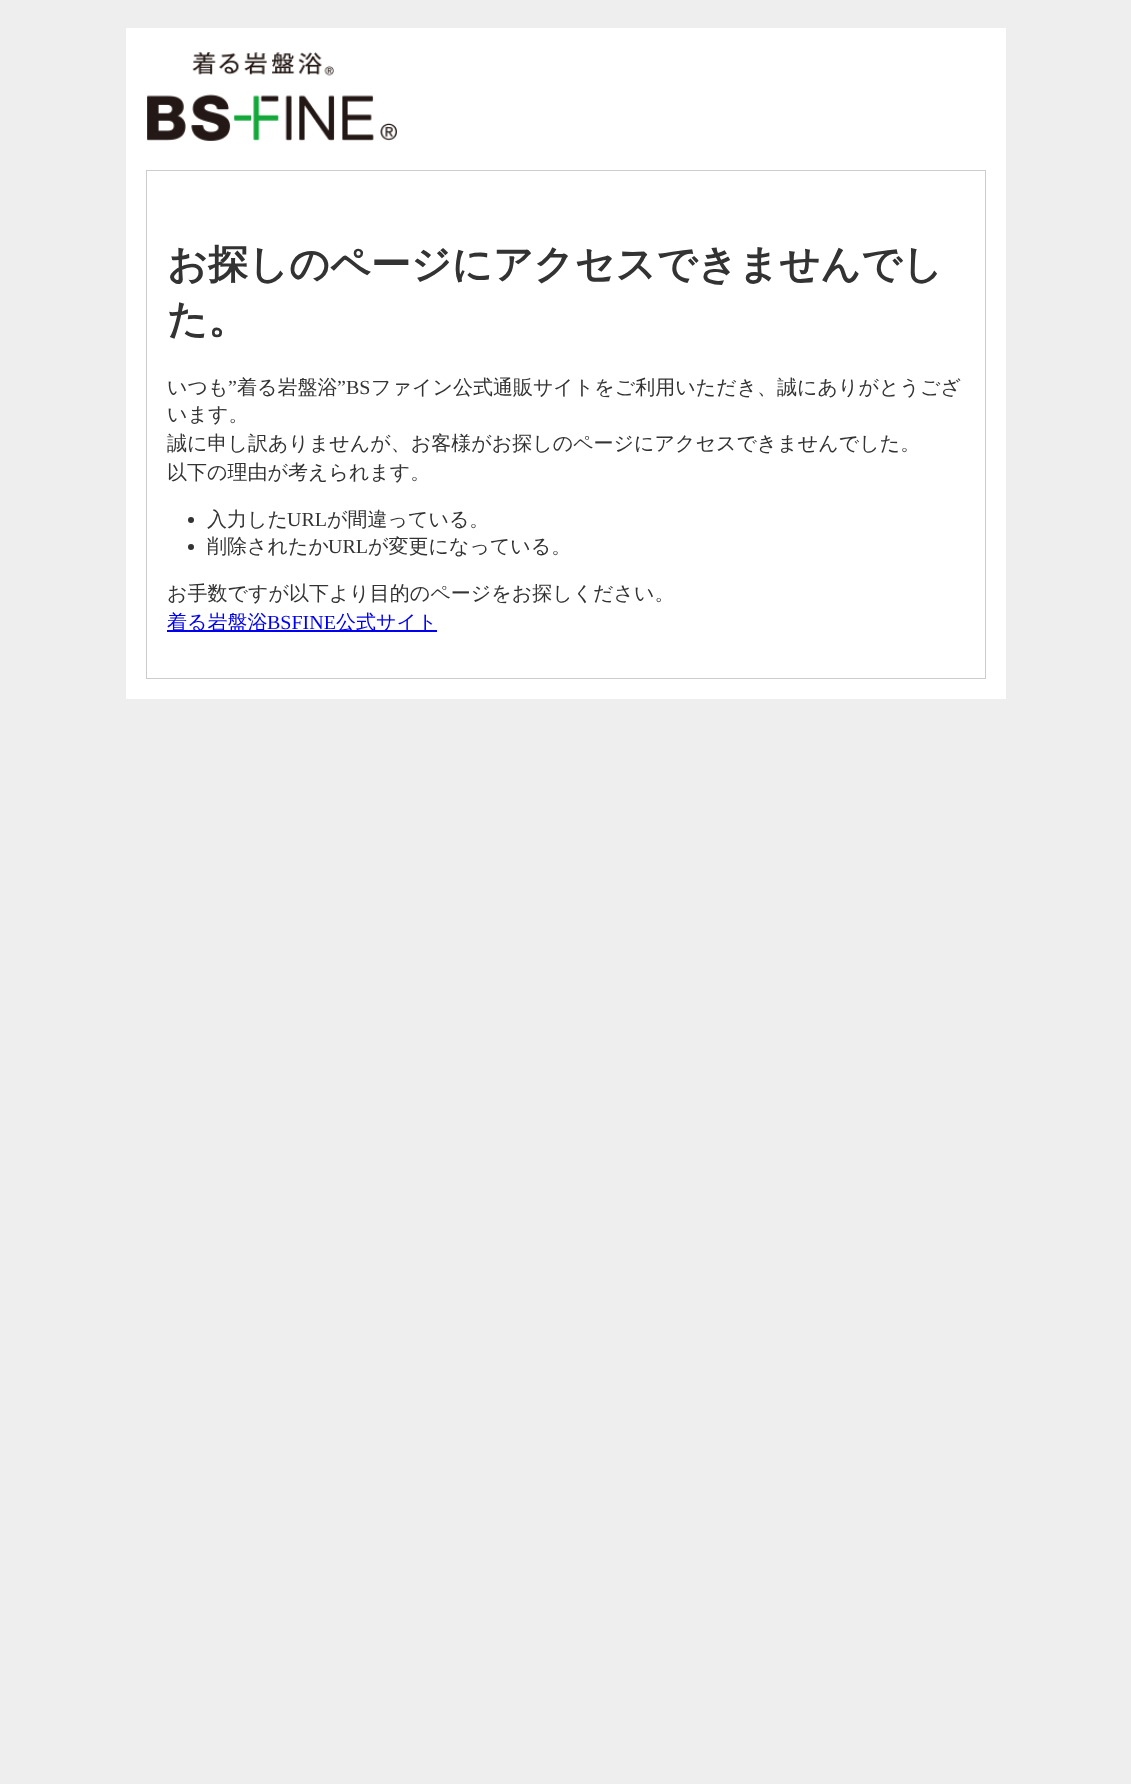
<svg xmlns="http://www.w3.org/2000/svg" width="1131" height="1784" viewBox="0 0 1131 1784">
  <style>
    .t1 { font: bold 40px WenQuanYi Zen Hei; fill: #333; }
    .t2 { font: 500 20px WenQuanYi Zen Hei; fill: #333; }
    .t3 { font: 20px Liberation Serif; fill: #333; }
    .t4 { font: 500 20px WenQuanYi Zen Hei; fill: #00e; }
    .t5 { font: 20px Liberation Serif; fill: #00e; }
  </style>
  <rect width="100%" height="100%" fill="#eee"/>
  <rect x="126" y="28" width="880" height="671" fill="#fff"/>
  <image x="147" y="52" width="250" height="89" href="images/1.png"/>
  <rect x="146.5" y="170.5" width="839" height="508" fill="none" stroke="#ccc"/>
  <text x="167" y="278" class="t1">お探しのページにアクセスできませんでし</text>
  <text x="167" y="333" class="t1">た。</text>
  <text x="167" y="394" class="t2">いつも</text>
  <text x="228" y="394" class="t3">”</text>
  <text x="237" y="394" class="t2">着る岩盤浴</text>
  <text x="337" y="394" class="t3">”BS</text>
  <text x="371" y="394" class="t2">ファイン公式通販サイトをご利用いただき、誠にありがとうござ</text>
  <text x="167" y="421" class="t2">います。</text>
  <text x="167" y="450" class="t2">誠に申し訳ありませんが、お客様がお探しのページにアクセスできませんでした。</text>
  <text x="167" y="479" class="t2">以下の理由が考えられます。</text>
  <circle cx="191" cy="520" r="3" fill="#333"/>
  <text x="207" y="526" class="t2">入力した</text>
  <text x="287" y="526" class="t3">URL</text>
  <text x="327" y="526" class="t2">が間違っている。</text>
  <circle cx="191" cy="547" r="3" fill="#333"/>
  <text x="207" y="553" class="t2">削除されたか</text>
  <text x="328" y="553" class="t3">URL</text>
  <text x="368" y="553" class="t2">が変更になっている。</text>
  <text x="167" y="600" class="t2">お手数ですが以下より目的のページをお探しください。</text>
  <rect x="167" y="630" width="270" height="2" fill="#00e"/>
  <text x="167" y="629" class="t4">着る岩盤浴</text>
  <text x="267" y="629" class="t5">BSFINE</text>
  <text x="336" y="629" class="t4">公式サイト</text>
</svg>
